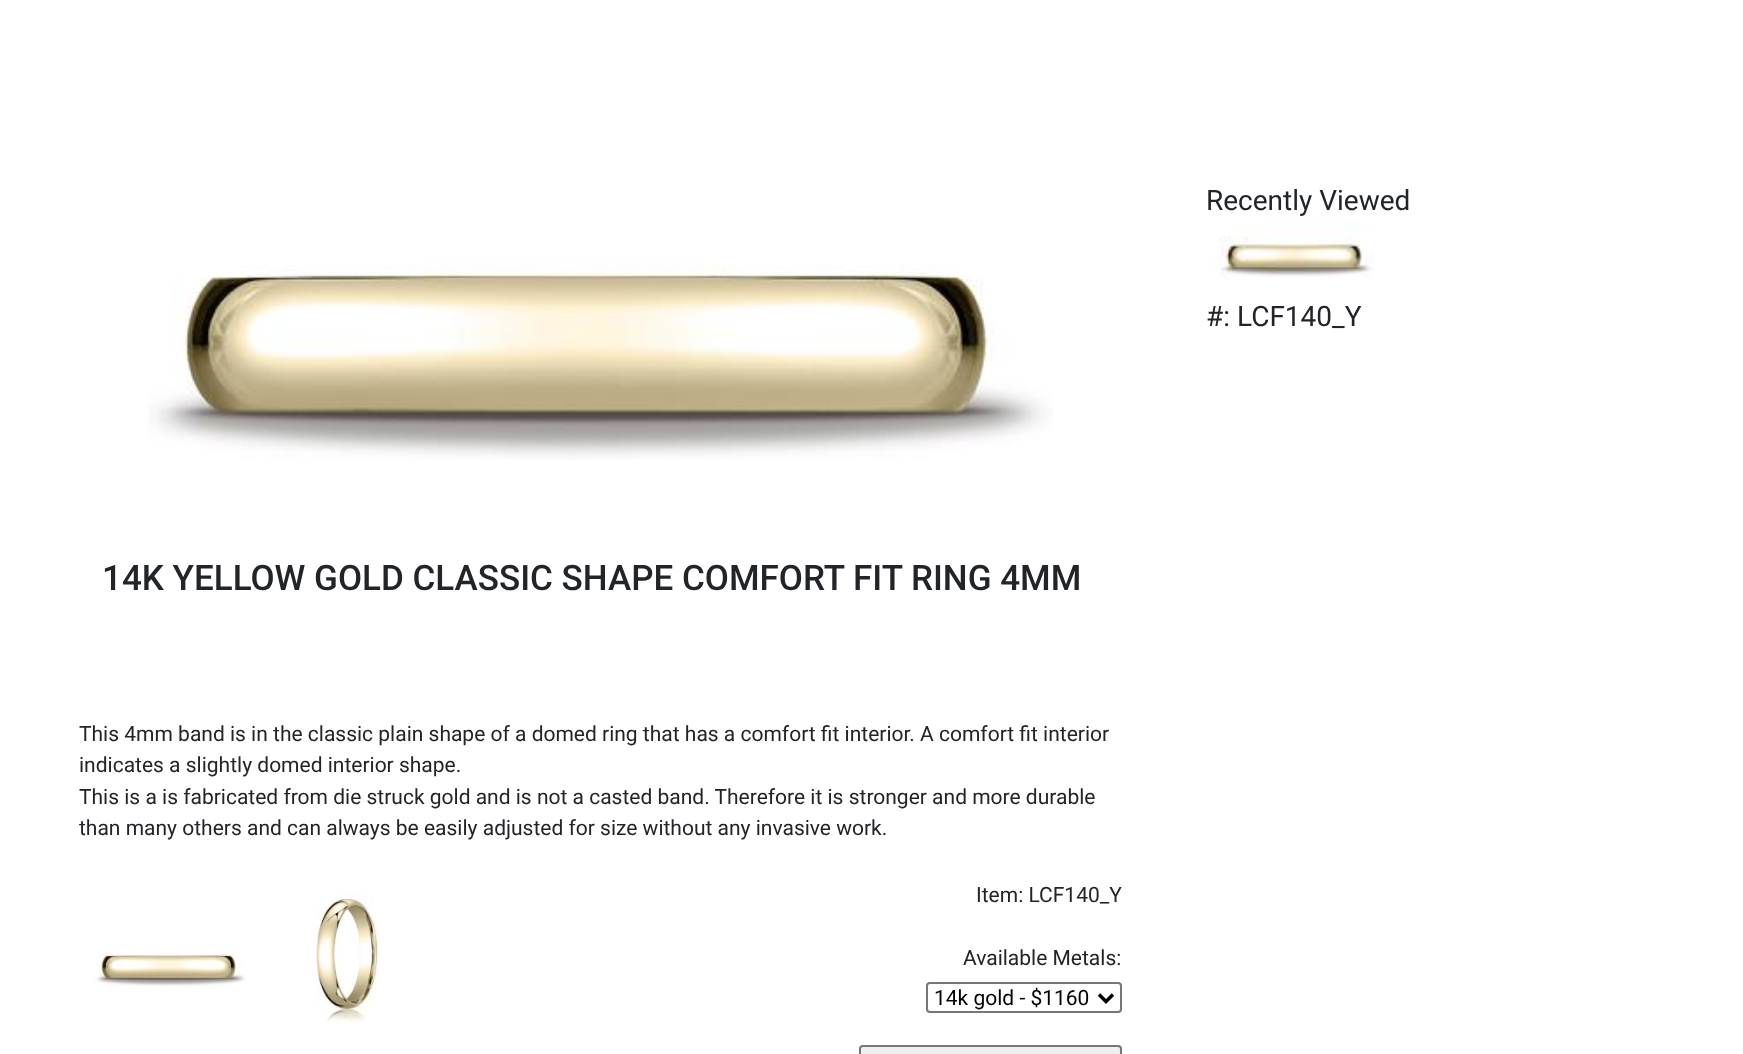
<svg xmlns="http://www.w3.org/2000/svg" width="1743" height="1054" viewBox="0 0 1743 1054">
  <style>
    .t1 { font: 28px Roboto; fill: #212529; }
    .t2 { font: 500 35px Roboto; fill: #212529; }
    .t3 { font: 21px Roboto; fill: #212529; }
    .t4 { font: 21px Roboto; fill: #000; }
  </style>
  <rect width="100%" height="100%" fill="#fff"/>
  <text x="1206" y="210" class="t1">Recently Viewed</text>
  <image x="1214" y="222" width="160" height="56" href="images/1.png"/>
  <text x="1206" y="326" class="t1">#: LCF140_Y</text>
  <image x="148" y="258" width="905" height="202" href="images/2.png"/>
  <text x="102" y="590" class="t2">14K YELLOW GOLD CLASSIC SHAPE COMFORT FIT RING 4MM</text>
  <text x="79" y="741" class="t3">This 4mm band is in the classic plain shape of a domed ring that has a comfort fit interior. A comfort fit interior</text>
  <text x="79" y="772" class="t3">indicates a slightly domed interior shape.</text>
  <text x="79" y="804" class="t3">This is a is fabricated from die struck gold and is not a casted band. Therefore it is stronger and more durable</text>
  <text x="79" y="835" class="t3">than many others and can always be easily adjusted for size without any invasive work.</text>
  <image x="95" y="947" width="151" height="41" href="images/3.png"/>
  <image x="316" y="892" width="64" height="131" href="images/4.png"/>
  <text x="976" y="902" class="t3">Item: LCF140_Y</text>
  <text x="963" y="965" class="t3">Available Metals:</text>
  <rect x="927" y="983" width="194" height="29" rx="3" fill="none" stroke="#767676" stroke-width="2"/>
  <path d="M1099 994.5L1106 1001.5L1113 994.5" fill="none" stroke="#000" stroke-width="3.5"/>
  <text x="934" y="1005" class="t4">14k gold - $1160</text>
  <rect x="860" y="1046" width="261" height="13" rx="3" fill="#efefef" stroke="#767676" stroke-width="2"/>
</svg>
